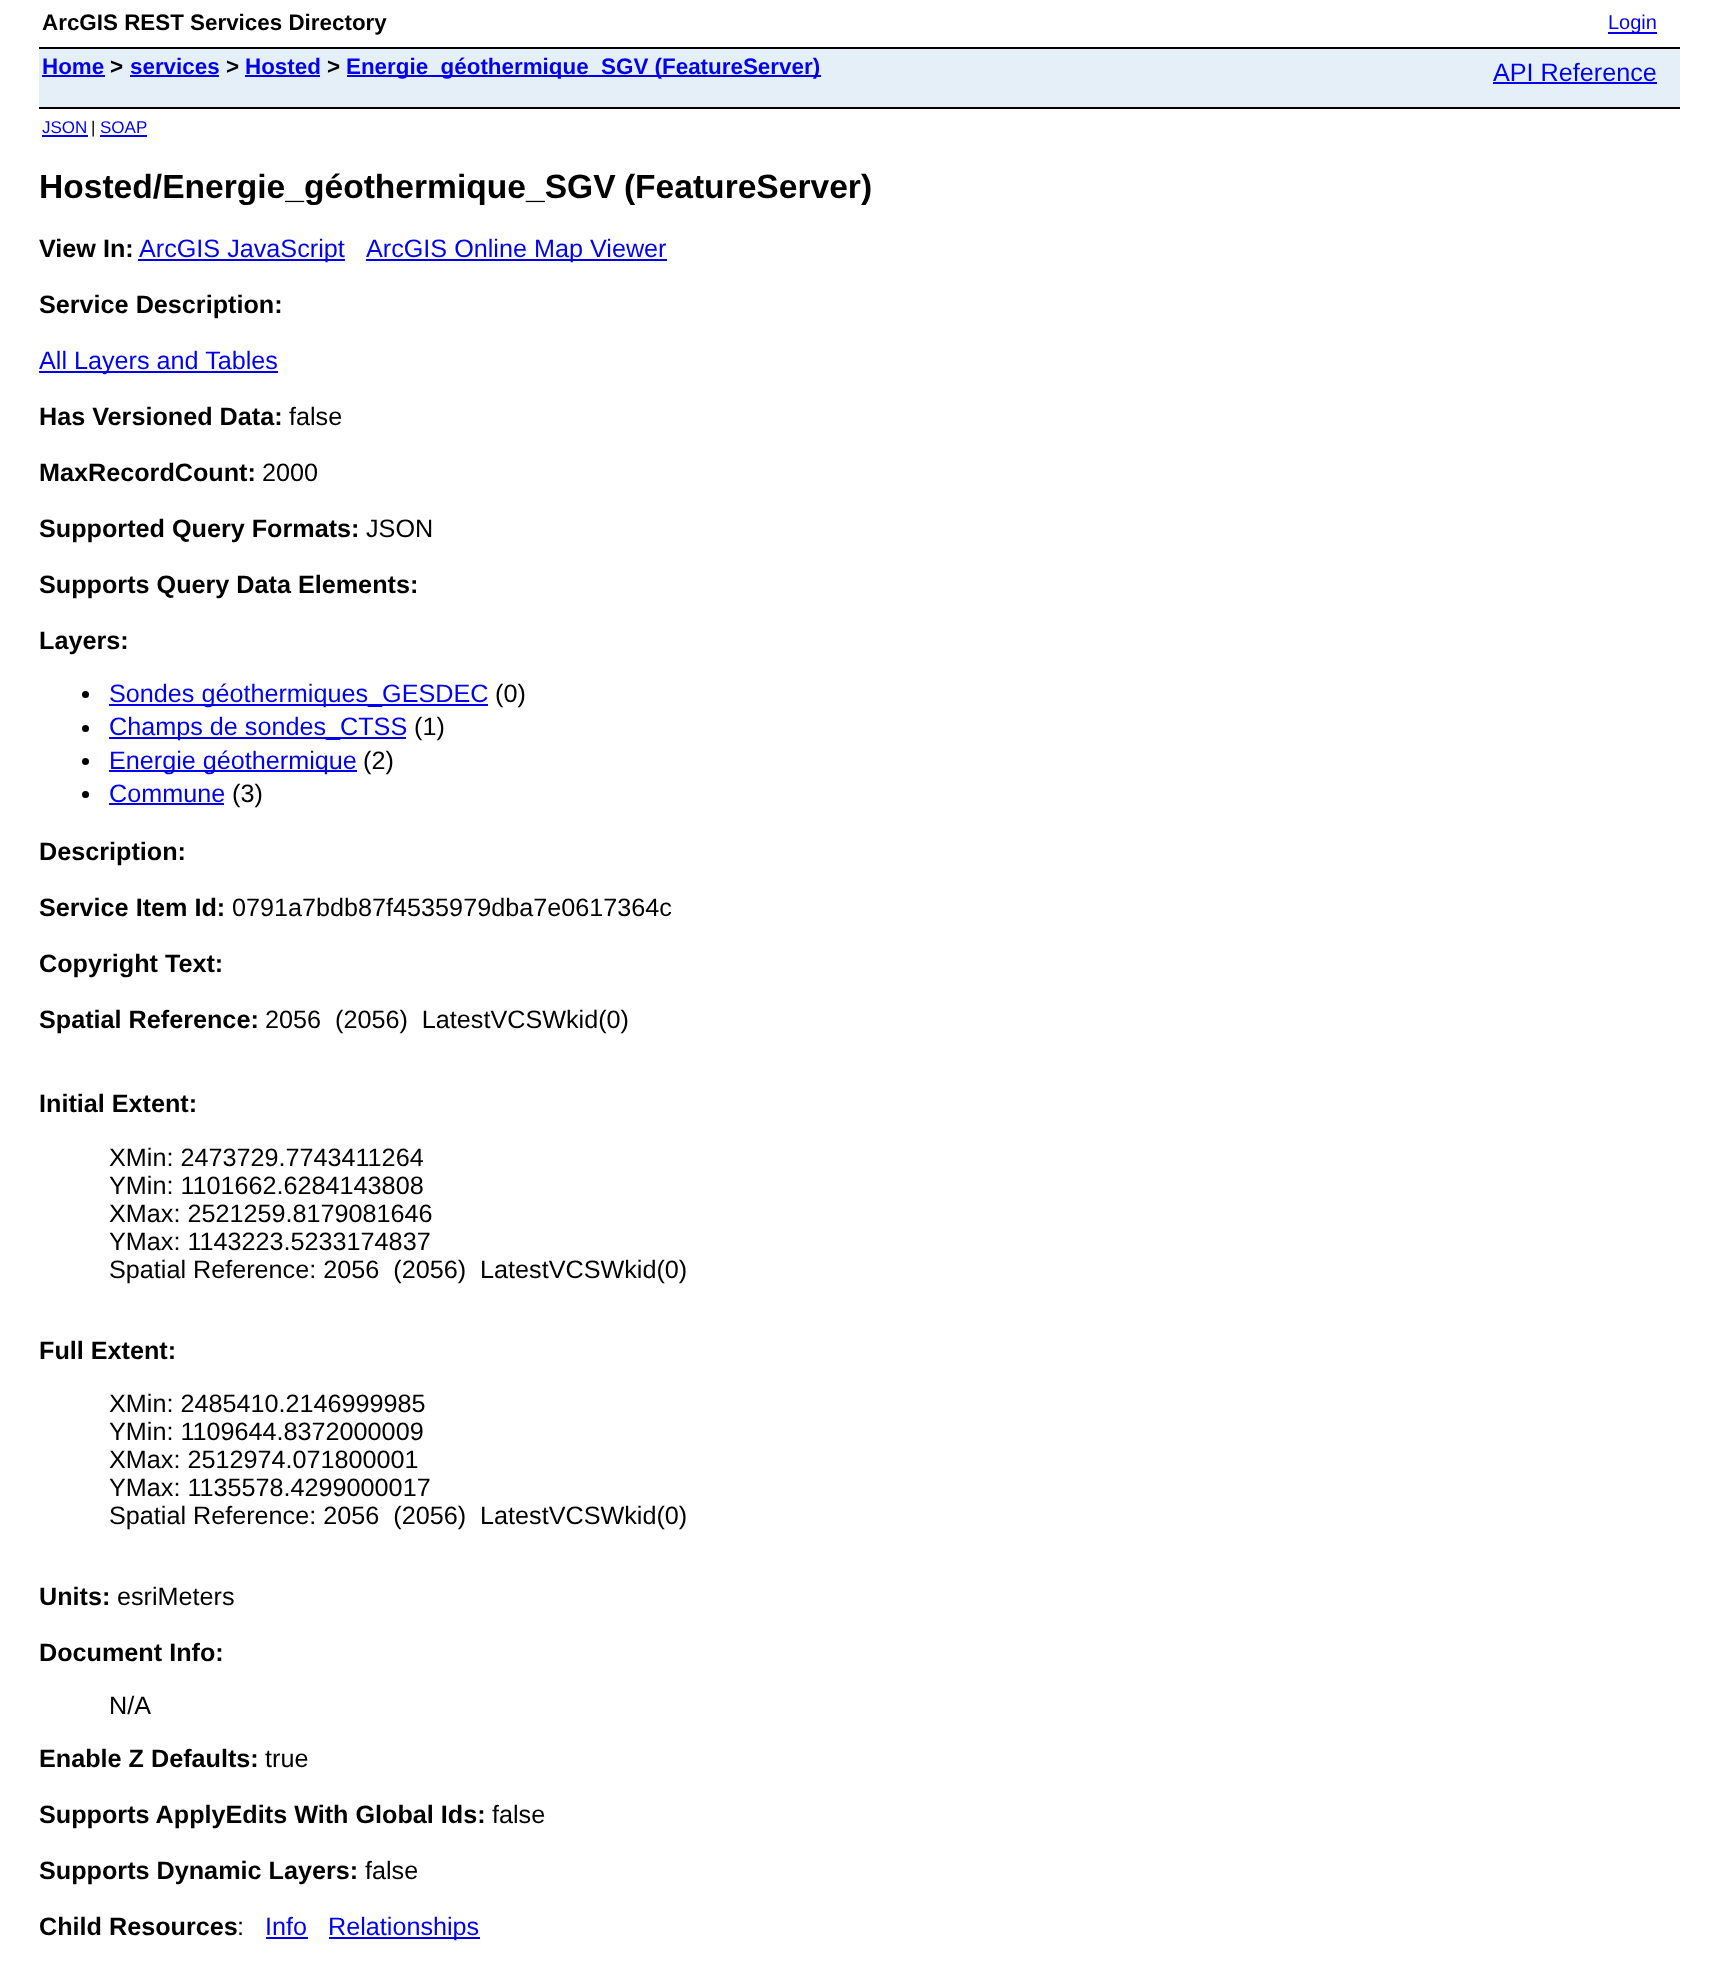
<svg xmlns="http://www.w3.org/2000/svg" width="1717" height="1985" viewBox="0 0 1717 1985">
  <style>
    .t1 { font: bold 22.4px Liberation Sans; fill: #000; }
    .t2 { font: 20px Liberation Sans; fill: #00e; }
    .t3 { font: bold 22.4px Liberation Sans; fill: #00e; }
    .t4 { font: 25.2px Liberation Sans; fill: #00e; }
    .t5 { font: 17px Liberation Sans; fill: #00e; }
    .t6 { font: 17px Liberation Sans; fill: #000; }
    .t7 { font: bold 33.6px Liberation Sans; fill: #000; }
    .t8 { font: bold 25.2px Liberation Sans; fill: #000; }
    .t9 { font: 25.2px Liberation Sans; fill: #000; }
  </style>
  <rect width="100%" height="100%" fill="#fff"/>
  <text x="42" y="30" class="t1">ArcGIS REST Services Directory</text>
  <rect x="1608" y="32" width="49" height="2" fill="#00e"/>
  <text x="1608" y="29" class="t2">Login</text>
  <rect x="39" y="49" width="1641" height="58" fill="#e5eff7"/>
  <rect x="39" y="47" width="1641" height="2" fill="#000"/>
  <rect x="39" y="107" width="1641" height="2" fill="#000"/>
  <text x="42" y="74" class="t3">Home</text>
  <rect x="42" y="75" width="63" height="2" fill="#00e"/>
  <text x="110" y="74" class="t1">&gt;</text>
  <text x="130" y="74" class="t3">services</text>
  <rect x="130" y="75" width="89" height="2" fill="#00e"/>
  <text x="226" y="74" class="t1">&gt;</text>
  <text x="245" y="74" class="t3">Hosted</text>
  <rect x="245" y="75" width="75" height="2" fill="#00e"/>
  <text x="327" y="74" class="t1">&gt;</text>
  <rect x="347" y="75" width="474" height="2" fill="#00e"/>
  <text x="346" y="74" class="t3">Energie_géothermique_SGV (FeatureServer)</text>
  <text x="1493" y="81" class="t4">API Reference</text>
  <rect x="1493" y="82" width="164" height="2" fill="#00e"/>
  <text x="42" y="133" class="t5">JSON</text>
  <rect x="42" y="135" width="46" height="2" fill="#00e"/>
  <text x="91" y="133" class="t6">|</text>
  <text x="100" y="133" class="t5">SOAP</text>
  <rect x="100" y="135" width="47" height="2" fill="#00e"/>
  <text x="39" y="198" word-spacing="-1" class="t7">Hosted/Energie_géothermique_SGV (FeatureServer)</text>
  <text x="39" y="257" class="t8">View In:</text>
  <rect x="138" y="259" width="207" height="2" fill="#00e"/>
  <text x="139" y="257" class="t4">ArcGIS JavaScript</text>
  <rect x="366" y="259" width="301" height="2" fill="#00e"/>
  <text x="366" y="257" class="t4">ArcGIS Online Map Viewer</text>
  <text x="39" y="313" class="t8">Service Description:</text>
  <rect x="39" y="371" width="239" height="2" fill="#00e"/>
  <text x="39" y="369" class="t4">All Layers and Tables</text>
  <text x="39" y="425" class="t8">Has Versioned Data:</text>
  <text x="289" y="425" class="t9">false</text>
  <text x="39" y="481" class="t8">MaxRecordCount:</text>
  <text x="262" y="481" class="t9">2000</text>
  <text x="39" y="537" class="t8">Supported Query Formats:</text>
  <text x="366" y="537" class="t9">JSON</text>
  <text x="39" y="593" class="t8">Supports Query Data Elements:</text>
  <text x="39" y="649" class="t8">Layers:</text>
  <circle cx="85.5" cy="694.5" r="3.5" fill="#000"/>
  <rect x="109" y="704" width="379" height="2" fill="#00e"/>
  <text x="109" y="702" class="t4">Sondes géothermiques_GESDEC</text>
  <text x="495" y="702" class="t9">(0)</text>
  <circle cx="85.5" cy="728.5" r="3.5" fill="#000"/>
  <rect x="109" y="737" width="297" height="2" fill="#00e"/>
  <text x="109" y="735" class="t4">Champs de sondes_CTSS</text>
  <text x="414" y="735" class="t9">(1)</text>
  <circle cx="85.5" cy="761.5" r="3.5" fill="#000"/>
  <rect x="109" y="770" width="248" height="2" fill="#00e"/>
  <text x="109" y="769" class="t4">Energie géothermique</text>
  <text x="363" y="769" class="t9">(2)</text>
  <circle cx="85.5" cy="794.5" r="3.5" fill="#000"/>
  <text x="109" y="802" class="t4">Commune</text>
  <rect x="109" y="803" width="115" height="2" fill="#00e"/>
  <text x="232" y="802" class="t9">(3)</text>
  <text x="39" y="860" class="t8">Description:</text>
  <text x="39" y="916" class="t8">Service Item Id:</text>
  <text x="232" y="916" class="t9">0791a7bdb87f4535979dba7e0617364c</text>
  <text x="39" y="972" class="t8">Copyright Text:</text>
  <text x="39" y="1028" class="t8">Spatial Reference:</text>
  <text x="265" y="1028" class="t9" xml:space="preserve">2056  (2056)  LatestVCSWkid(0)</text>
  <text x="39" y="1112" class="t8">Initial Extent:</text>
  <text x="109" y="1166" class="t9">XMin: 2473729.7743411264</text>
  <text x="109" y="1194" class="t9">YMin: 1101662.6284143808</text>
  <text x="109" y="1222" class="t9">XMax: 2521259.8179081646</text>
  <text x="109" y="1250" class="t9">YMax: 1143223.5233174837</text>
  <text x="109" y="1278" class="t9" xml:space="preserve">Spatial Reference: 2056  (2056)  LatestVCSWkid(0)</text>
  <text x="39" y="1359" class="t8">Full Extent:</text>
  <text x="109" y="1412" class="t9">XMin: 2485410.2146999985</text>
  <text x="109" y="1440" class="t9">YMin: 1109644.8372000009</text>
  <text x="109" y="1468" class="t9">XMax: 2512974.071800001</text>
  <text x="109" y="1496" class="t9">YMax: 1135578.4299000017</text>
  <text x="109" y="1524" class="t9" xml:space="preserve">Spatial Reference: 2056  (2056)  LatestVCSWkid(0)</text>
  <text x="39" y="1605" class="t8">Units:</text>
  <text x="117" y="1605" class="t9">esriMeters</text>
  <text x="39" y="1661" class="t8">Document Info:</text>
  <text x="109" y="1714" class="t9">N/A</text>
  <text x="39" y="1767" class="t8">Enable Z Defaults:</text>
  <text x="265" y="1767" class="t9">true</text>
  <text x="39" y="1823" class="t8">Supports ApplyEdits With Global Ids:</text>
  <text x="492" y="1823" class="t9">false</text>
  <text x="39" y="1879" class="t8">Supports Dynamic Layers:</text>
  <text x="365" y="1879" class="t9">false</text>
  <text x="39" y="1935" class="t8">Child Resources</text>
  <text x="237" y="1935" class="t9">:</text>
  <text x="265" y="1935" class="t4">Info</text>
  <rect x="266" y="1937" width="42" height="2" fill="#00e"/>
  <rect x="329" y="1937" width="151" height="2" fill="#00e"/>
  <text x="328" y="1935" class="t4">Relationships</text>
</svg>
